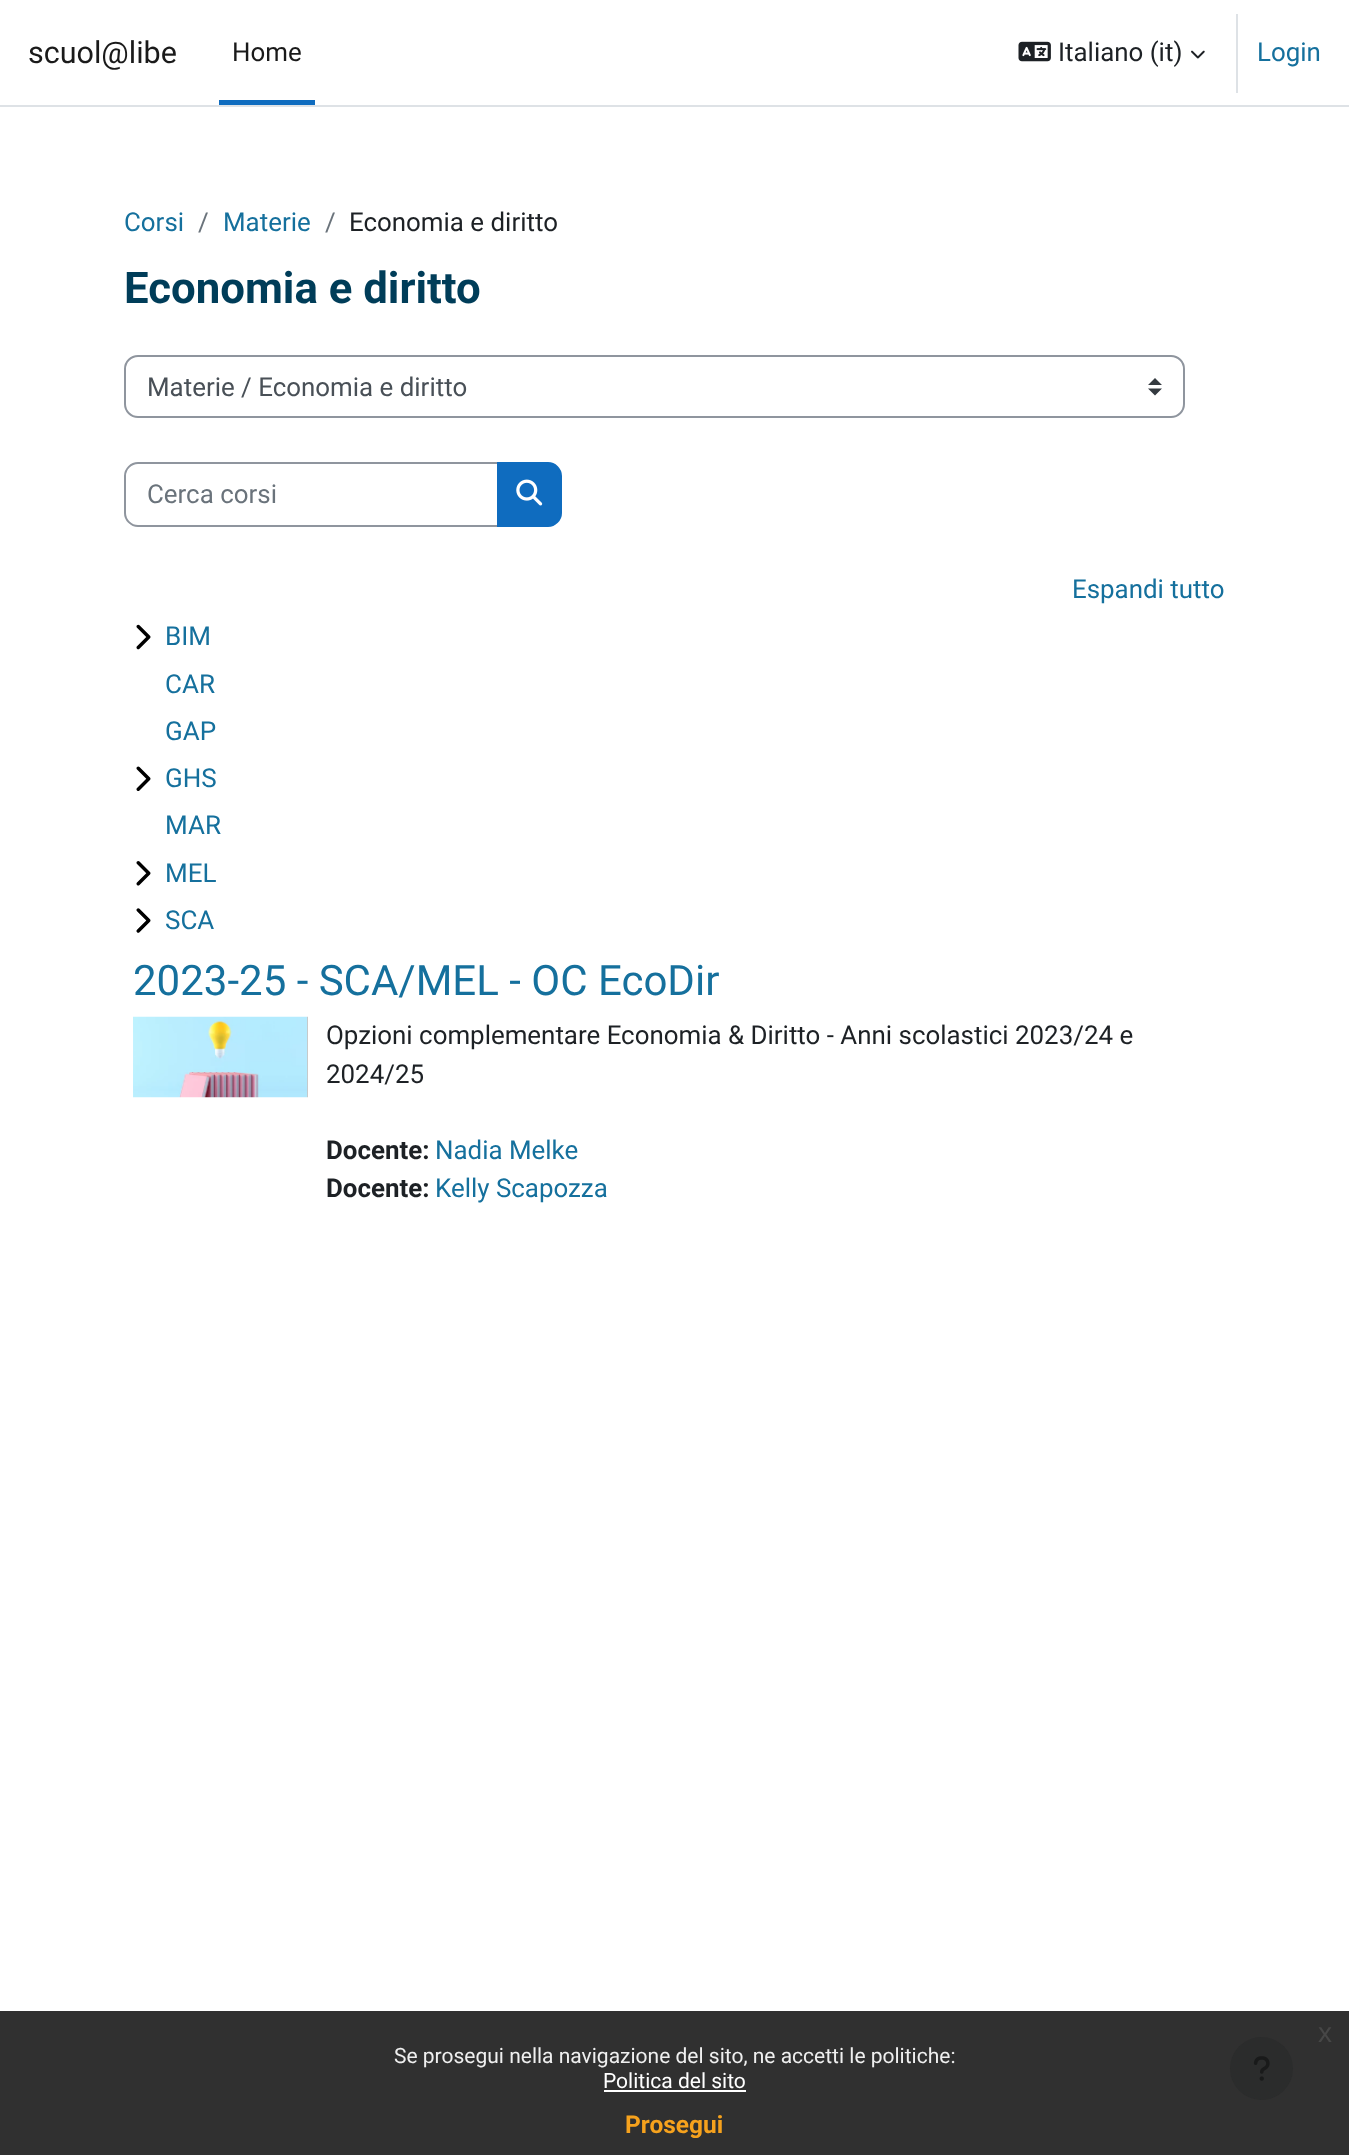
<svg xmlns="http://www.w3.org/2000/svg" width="1349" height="2155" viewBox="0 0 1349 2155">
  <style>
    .t1 { font: 30.5px Roboto; fill: #1a1a1a; }
    .t2 { font: 25.9px Roboto; fill: #1a1a1a; }
    .t3 { font: 25.9px Roboto; fill: #1d2125; }
    .t4 { font: 25.9px Roboto; fill: #15709d; }
    .t5 { font: 25.9px Roboto; fill: #6a737b; }
    .t6 { font: bold 43.75px Roboto; fill: #003d59; }
    .t7 { font: 25.9px Roboto; fill: #495057; }
    .t8 { font: 26px Roboto; fill: #15709d; }
    .t9 { font: 42px Roboto; fill: #15709d; }
    .t10 { font: bold 25.9px Roboto; fill: #1d2125; }
    .t11 { font: 28px Liberation Sans; fill: #474747; }
    .t12 { font: 21px Roboto; fill: #efefef; }
    .t13 { font: 21px Roboto; fill: #fff; }
    .t14 { font: bold 24.5px Roboto; fill: #f6a21d; }
  </style>
  <rect width="100%" height="100%" fill="#fff"/>
  <rect x="0" y="2011" width="1349" height="144" fill="#303030"/>
  <rect x="0" y="105" width="1349" height="2" fill="#dee2e6"/>
  <text x="28" y="63" class="t1">scuol@libe</text>
  <rect x="219" y="100" width="96" height="5" fill="#0f6cbf"/>
  <text x="232" y="61" class="t2">Home</text>
  <image x="1018" y="41" width="33" height="21" href="images/1.png"/>
  <text x="1058" y="61" class="t3">Italiano (it)</text>
  <image x="1191" y="50" width="14" height="9" href="images/2.png"/>
  <rect x="1236" y="14" width="2" height="79" fill="#dee2e6"/>
  <text x="1257" y="61" class="t4">Login</text>
  <text x="124" y="231" class="t4">Corsi</text>
  <text x="198" y="231" class="t5">/</text>
  <text x="223" y="231" class="t4">Materie</text>
  <text x="325" y="231" class="t5">/</text>
  <text x="349" y="231" class="t3">Economia e diritto</text>
  <text x="124" y="303" class="t6">Economia e diritto</text>
  <path d="M1155 378L1148 385H1162ZM1155 395.5L1148 388.5H1162Z" fill="#343a40"/>
  <rect x="125" y="356" width="1059" height="61" rx="13" fill="none" stroke="#8f959e" stroke-width="2"/>
  <text x="147" y="396" class="t7">Materie / Economia e diritto</text>
  <path d="M138 463H498V526H138C131 526 125 520 125 513V476C125 469 131 463 138 463Z" fill="none" stroke="#8f959e" stroke-width="2"/>
  <text x="147" y="503" class="t5">Cerca corsi</text>
  <path d="M498 463H548C555 463 561 469 561 476V513C561 520 555 526 548 526H498Z" fill="#0f6cbf" stroke="#0f6cbf" stroke-width="2"/>
  <image x="516" y="479" width="27" height="27" href="images/3.png"/>
  <text x="1072" y="598" class="t4">Espandi tutto</text>
  <image x="136" y="624" width="15" height="26" href="images/4.png"/>
  <text x="165" y="645" class="t8">BIM</text>
  <text x="165" y="693" class="t8">CAR</text>
  <text x="165" y="740" class="t8">GAP</text>
  <image x="136" y="766" width="15" height="25" href="images/5.png"/>
  <text x="165" y="787" class="t8">GHS</text>
  <text x="165" y="834" class="t8">MAR</text>
  <image x="136" y="861" width="15" height="25" href="images/6.png"/>
  <text x="165" y="882" class="t8">MEL</text>
  <image x="136" y="908" width="15" height="25" href="images/7.png"/>
  <text x="165" y="929" class="t8">SCA</text>
  <text x="133" y="995" class="t9">2023-25 - SCA/MEL - OC EcoDir</text>
  <image x="133" y="1016" width="175" height="82" href="images/8.png"/>
  <text x="326" y="1044" class="t3">Opzioni complementare Economia &amp; Diritto - Anni scolastici 2023/24 e</text>
  <text x="326" y="1083" class="t3">2024/25</text>
  <text x="326" y="1159" class="t10">Docente:</text>
  <text x="435" y="1159" class="t4">Nadia Melke</text>
  <text x="326" y="1197" class="t10">Docente:</text>
  <text x="435" y="1197" class="t4">Kelly Scapozza</text>
  <circle cx="1261.5" cy="2068.5" r="31.5" fill="#2b2c2c"/>
  <image x="1253" y="2056" width="17" height="25" href="images/9.png"/>
  <text x="1318" y="2042" class="t11">x</text>
  <text x="394" y="2063" class="t12">Se prosegui nella navigazione del sito, ne accetti le politiche:</text>
  <text x="603" y="2088" class="t13">Politica del sito</text>
  <rect x="604" y="2090" width="142" height="2" fill="#fff"/>
  <text x="625" y="2133" class="t14">Prosegui</text>
</svg>
